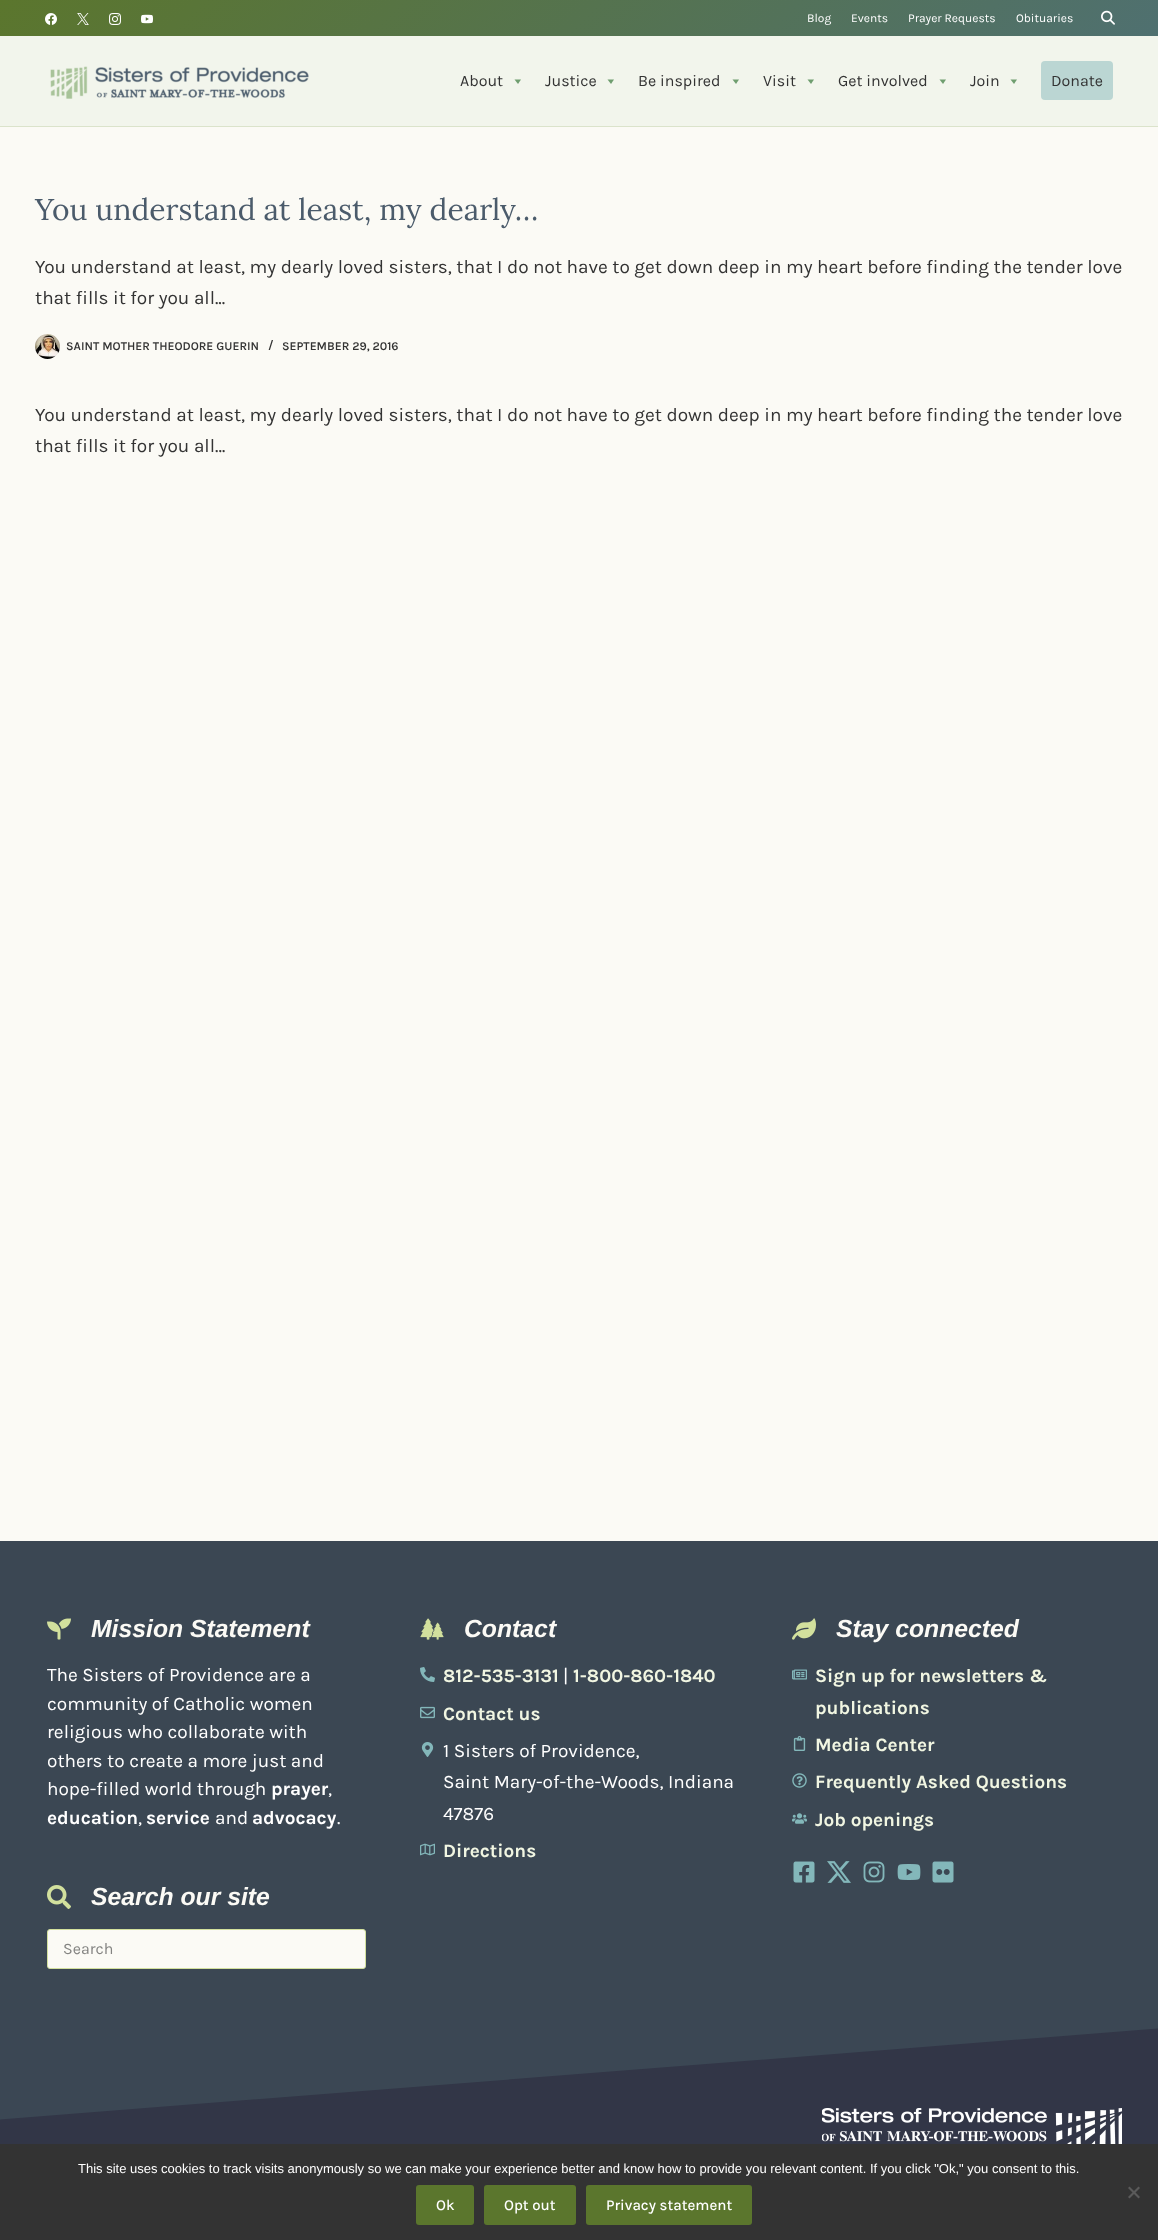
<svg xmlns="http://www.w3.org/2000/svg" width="1158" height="2240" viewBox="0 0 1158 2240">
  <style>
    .t1 { font: 12px Karla; fill: #fff; }
    .t2 { font: 16px Karla; fill: #333; }
    .t3 { font: 30px Lora; fill: #4b5b6b; }
    .t4 { font: 19px Karla; fill: #333; }
    .t5 { font: 600 12px Karla; fill: #333; }
    .t6 { font: italic bold 24.75px Liberation Sans; fill: #fbfaf5; }
    .t7 { font: 19px Karla; fill: #fff; }
    .t8 { font: bold 19px Karla; fill: #fff; }
    .t9 { font: 16px Karla; fill: #838381; }
    .t10 { font: bold 19px Karla; fill: #f1f6e2; }
    .t11 { font: 13px Liberation Sans; fill: #fff; }
    .t12 { font: 500 15px Karla; fill: #fff; }
  </style>
  <defs>
    <linearGradient id="g1" gradientUnits="userSpaceOnUse" x1="281" y1="-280" x2="878" y2="317"><stop offset="0" stop-color="#5b762d"/><stop offset="1" stop-color="#4f7070"/></linearGradient>
    <clipPath id="clip1"><rect x="0" y="2020" width="1158" height="100"/></clipPath>
  </defs>
  <rect width="100%" height="100%" fill="#fbfaf5"/>
  <rect x="0" y="0" width="1158" height="36" fill="url(#g1)"/>
  <image x="45" y="13" width="12" height="12" href="images/1.png"/>
  <image x="77" y="13" width="12" height="12" href="images/2.png"/>
  <image x="109" y="13" width="12" height="12" href="images/3.png"/>
  <image x="141" y="14" width="12" height="10" href="images/4.png"/>
  <text x="807" y="22" class="t1">Blog</text>
  <text x="851" y="22" class="t1">Events</text>
  <text x="908" y="22" class="t1">Prayer Requests</text>
  <text x="1016" y="22" class="t1">Obituaries</text>
  <image x="1101" y="10" width="14" height="15" href="images/5.png"/>
  <rect x="0" y="36" width="1158" height="90" fill="#f2f5ec"/>
  <rect x="0" y="126" width="1158" height="1" fill="#dbe3cb"/>
  <image x="50" y="66" width="259" height="33" href="images/6.png"/>
  <text x="460" y="86" class="t2">About</text>
  <path d="M521 79.5L518 84L514.5 79.5Z" fill="#6f9e6f"/>
  <text x="545" y="86" class="t2">Justice</text>
  <path d="M614 79.5L611 84L607.5 79.5Z" fill="#6f9e6f"/>
  <text x="638" y="86" class="t2">Be inspired</text>
  <path d="M739 79.5L736 84L732.5 79.5Z" fill="#6f9e6f"/>
  <text x="763" y="86" class="t2">Visit</text>
  <path d="M814 79.5L811 84L807.5 79.5Z" fill="#6f9e6f"/>
  <text x="838" y="86" class="t2">Get involved</text>
  <path d="M946 79.5L943 84L939.5 79.5Z" fill="#6f9e6f"/>
  <text x="970" y="86" class="t2">Join</text>
  <path d="M1017 79.5L1014 84L1010.5 79.5Z" fill="#6f9e6f"/>
  <rect x="1041" y="61" width="72" height="39" rx="4" fill="#bbd6d3"/>
  <text x="1051" y="86" class="t2">Donate</text>
  <text x="35" y="220" class="t3">You understand at least, my dearly…</text>
  <text x="35" y="273" class="t4">You understand at least, my dearly loved sisters, that I do not have to get down deep in my heart before finding the tender love</text>
  <text x="35" y="304" class="t4">that fills it for you all...</text>
  <image x="35" y="334" width="25" height="25" href="images/7.png"/>
  <text x="66" y="350" class="t5">SAINT MOTHER THEODORE GUERIN</text>
  <text x="268" y="349" class="t5">/</text>
  <text x="282" y="350" class="t5">SEPTEMBER 29, 2016</text>
  <text x="35" y="421" class="t4">You understand at least, my dearly loved sisters, that I do not have to get down deep in my heart before finding the tender love</text>
  <text x="35" y="452" class="t4">that fills it for you all…</text>
  <rect x="0" y="1541" width="1158" height="479" fill="#3b4753"/>
  <image x="47" y="1618" width="24" height="22" href="images/8.png"/>
  <text x="91" y="1637" class="t6">Mission Statement</text>
  <text x="47" y="1681" class="t7">The Sisters of Providence are a</text>
  <text x="47" y="1710" class="t7">community of Catholic women</text>
  <text x="47" y="1738" class="t7">religious who collaborate with</text>
  <text x="47" y="1767" class="t7">others to create a more just and</text>
  <text x="47" y="1795" class="t7">hope-filled world through</text>
  <text x="271" y="1795" class="t8">prayer</text>
  <text x="328" y="1795" class="t7">,</text>
  <text x="47" y="1824" class="t8">education</text>
  <text x="138" y="1824" class="t7">,</text>
  <text x="146" y="1824" class="t8">service</text>
  <text x="215" y="1824" class="t7">and</text>
  <text x="252" y="1824" class="t8">advocacy</text>
  <text x="337" y="1824" class="t7">.</text>
  <image x="47" y="1885" width="24" height="24" href="images/9.png"/>
  <text x="91" y="1905" class="t6">Search our site</text>
  <rect x="47.5" y="1929.5" width="318" height="39" rx="2.5" fill="#fbfaf5" stroke="#d2e09d"/>
  <text x="63" y="1954" class="t9">Search</text>
  <image x="420" y="1618" width="24" height="22" href="images/10.png"/>
  <text x="464" y="1637" class="t6">Contact</text>
  <image x="420" y="1667" width="15" height="15" href="images/11.png"/>
  <text x="443" y="1682" class="t10">812-535-3131</text>
  <text x="563" y="1682" class="t7">|</text>
  <text x="573" y="1682" class="t10">1-800-860-1840</text>
  <image x="420" y="1706" width="15" height="13" href="images/12.png"/>
  <text x="443" y="1720" class="t10">Contact us</text>
  <image x="421" y="1742" width="13" height="15" href="images/13.png"/>
  <text x="443" y="1757" class="t7">1 Sisters of Providence,</text>
  <text x="443" y="1788" class="t7">Saint Mary-of-the-Woods, Indiana</text>
  <text x="443" y="1820" class="t7">47876</text>
  <image x="420" y="1843" width="15" height="13" href="images/14.png"/>
  <text x="443" y="1857" class="t10">Directions</text>
  <image x="792" y="1618" width="24" height="22" href="images/15.png"/>
  <text x="836" y="1637" class="t6">Stay connected</text>
  <image x="792" y="1669" width="15" height="11" href="images/16.png"/>
  <text x="815" y="1682" class="t10">Sign up for newsletters &amp;</text>
  <text x="815" y="1714" class="t10">publications</text>
  <image x="793" y="1736" width="13" height="15" href="images/17.png"/>
  <text x="815" y="1751" class="t10">Media Center</text>
  <image x="792" y="1773" width="15" height="15" href="images/18.png"/>
  <text x="815" y="1788" class="t10">Frequently Asked Questions</text>
  <image x="792" y="1813" width="15" height="11" href="images/19.png"/>
  <text x="815" y="1826" class="t10">Job openings</text>
  <image x="793" y="1861" width="22" height="22" href="images/20.png"/>
  <image x="827" y="1861" width="24" height="22" href="images/21.png"/>
  <image x="863" y="1861" width="22" height="22" href="images/22.png"/>
  <image x="897" y="1864" width="24" height="16" href="images/23.png"/>
  <image x="932" y="1861" width="22" height="22" href="images/24.png"/>
  <rect x="0" y="2028" width="1158" height="116" fill="#323647"/>
  <g clip-path="url(#clip1)">
    <path d="M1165 2015H-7V2120L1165 2028Z" fill="#3b4754"/>
  </g>
  <image x="822" y="2108" width="300" height="36" href="images/25.png"/>
  <rect x="0" y="2144" width="1158" height="96" fill="#333"/>
  <text x="78" y="2173" class="t11">This site uses cookies to track visits anonymously so we can make your experience better and know how to provide you relevant content. If you click "Ok," you consent to this.</text>
  <path d="M1138.5 2186.5L1140 2188L1129.5 2198.5L1128 2197Z" fill="#5a5a5a"/>
  <path d="M1128 2188L1129.5 2186.5L1140 2197L1138.5 2198.5Z" fill="#5a5a5a"/>
  <rect x="416" y="2185" width="58" height="40" rx="3" fill="#5b762d"/>
  <text x="436" y="2210" class="t12">Ok</text>
  <rect x="484" y="2185" width="92" height="40" rx="3" fill="#5b762d"/>
  <text x="504" y="2210" class="t12">Opt out</text>
  <rect x="586" y="2185" width="166" height="40" rx="3" fill="#5b762d"/>
  <text x="606" y="2210" class="t12">Privacy statement</text>
</svg>
